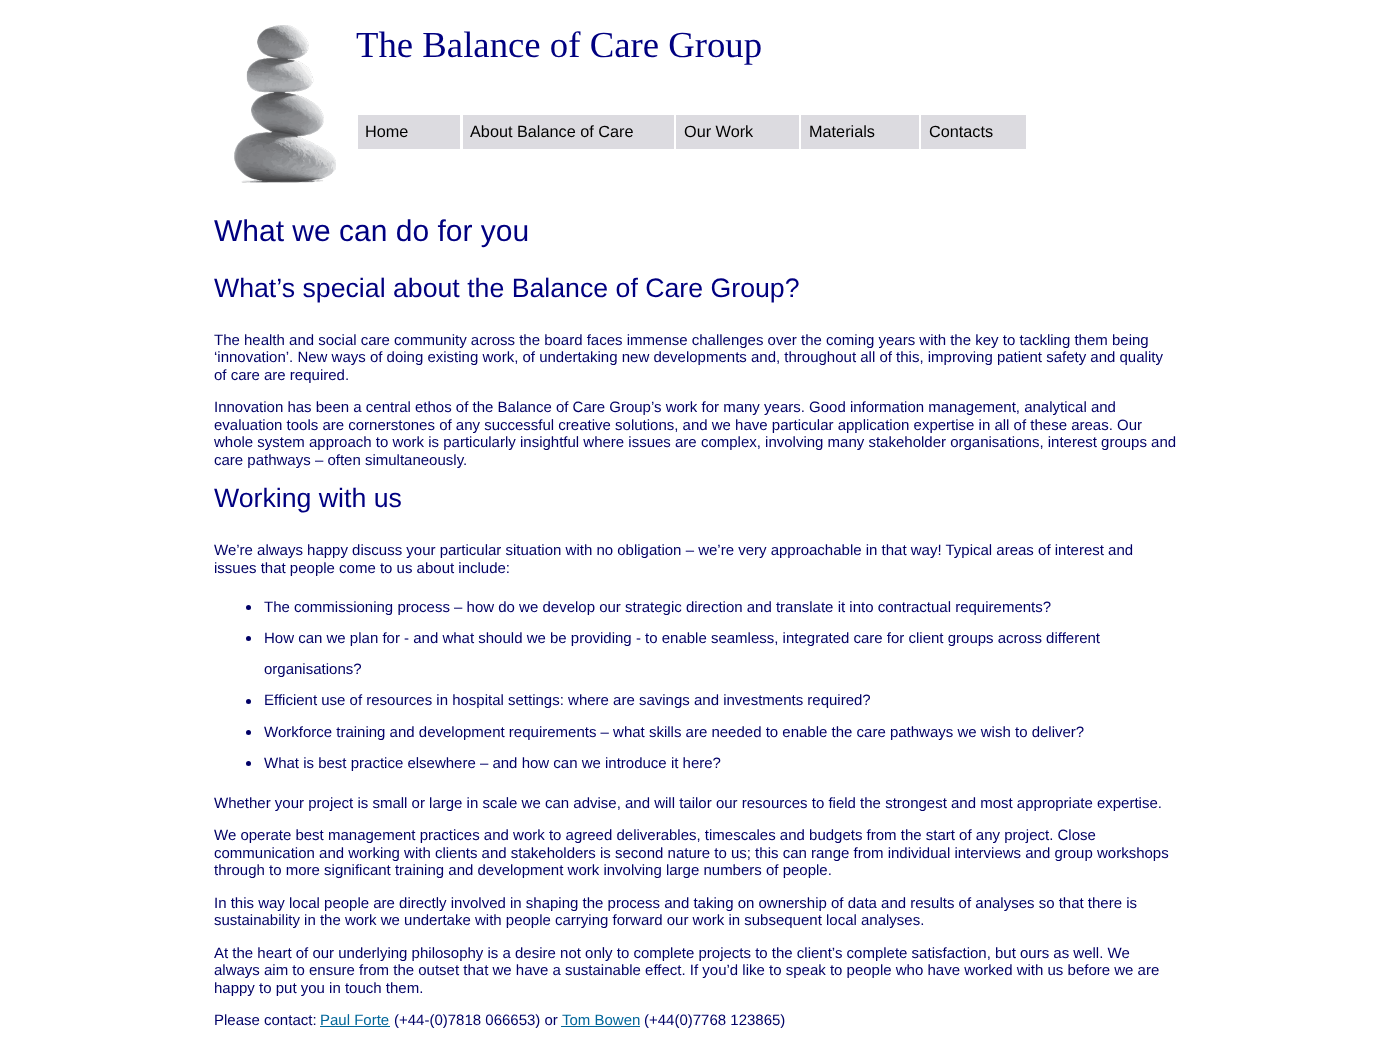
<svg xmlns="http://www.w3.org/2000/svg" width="1389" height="1051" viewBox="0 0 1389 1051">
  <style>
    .t1 { font: 36.75px Liberation Serif; fill: #000080; }
    .t2 { font: 16.25px Liberation Sans; fill: #000; }
    .t3 { font: 30px Liberation Sans; fill: #000080; }
    .t4 { font: 26.7px Liberation Sans; fill: #000080; }
    .t5 { font: 15px Liberation Sans; fill: #006; }
    .t6 { font: 15px Liberation Sans; fill: #069; }
  </style>
  <rect width="100%" height="100%" fill="#fff"/>
  <image x="234" y="25" width="102" height="158" href="images/1.png"/>
  <text x="356" y="57" class="t1">The Balance of Care Group</text>
  <rect x="358" y="115" width="102" height="34" fill="#dcdbe0"/>
  <text x="365" y="137" class="t2">Home</text>
  <rect x="463" y="115" width="211" height="34" fill="#dcdbe0"/>
  <text x="470" y="137" class="t2">About Balance of Care</text>
  <rect x="676" y="115" width="123" height="34" fill="#dcdbe0"/>
  <text x="684" y="137" class="t2">Our Work</text>
  <rect x="801" y="115" width="118" height="34" fill="#dcdbe0"/>
  <text x="809" y="137" class="t2">Materials</text>
  <rect x="921" y="115" width="105" height="34" fill="#dcdbe0"/>
  <text x="929" y="137" class="t2">Contacts</text>
  <text x="214" y="241" class="t3">What we can do for you</text>
  <text x="214" y="297" class="t4">What’s special about the Balance of Care Group?</text>
  <text x="214" y="345" class="t5">The health and social care community across the board faces immense challenges over the coming years with the key to tackling them being</text>
  <text x="214" y="362" class="t5">‘innovation’. New ways of doing existing work, of undertaking new developments and, throughout all of this, improving patient safety and quality</text>
  <text x="214" y="380" class="t5">of care are required.</text>
  <text x="214" y="412" class="t5">Innovation has been a central ethos of the Balance of Care Group’s work for many years. Good information management, analytical and</text>
  <text x="214" y="430" class="t5">evaluation tools are cornerstones of any successful creative solutions, and we have particular application expertise in all of these areas. Our</text>
  <text x="214" y="447" class="t5">whole system approach to work is particularly insightful where issues are complex, involving many stakeholder organisations, interest groups and</text>
  <text x="214" y="465" class="t5">care pathways – often simultaneously.</text>
  <text x="214" y="507" class="t4">Working with us</text>
  <text x="214" y="555" class="t5">We’re always happy discuss your particular situation with no obligation – we’re very approachable in that way! Typical areas of interest and</text>
  <text x="214" y="573" class="t5">issues that people come to us about include:</text>
  <circle cx="248.5" cy="607.5" r="2.5" fill="#006"/>
  <text x="264" y="612" class="t5">The commissioning process – how do we develop our strategic direction and translate it into contractual requirements?</text>
  <circle cx="248.5" cy="638.5" r="2.5" fill="#006"/>
  <text x="264" y="643" class="t5">How can we plan for - and what should we be providing - to enable seamless, integrated care for client groups across different</text>
  <text x="264" y="674" class="t5">organisations?</text>
  <circle cx="248.5" cy="701.5" r="2.5" fill="#006"/>
  <text x="264" y="705" class="t5">Efficient use of resources in hospital settings: where are savings and investments required?</text>
  <circle cx="248.5" cy="732.5" r="2.5" fill="#006"/>
  <text x="264" y="737" class="t5">Workforce training and development requirements – what skills are needed to enable the care pathways we wish to deliver?</text>
  <circle cx="248.5" cy="763.5" r="2.5" fill="#006"/>
  <text x="264" y="768" class="t5">What is best practice elsewhere – and how can we introduce it here?</text>
  <text x="214" y="808" class="t5">Whether your project is small or large in scale we can advise, and will tailor our resources to field the strongest and most appropriate expertise.</text>
  <text x="214" y="840" class="t5">We operate best management practices and work to agreed deliverables, timescales and budgets from the start of any project. Close</text>
  <text x="214" y="858" class="t5">communication and working with clients and stakeholders is second nature to us; this can range from individual interviews and group workshops</text>
  <text x="214" y="875" class="t5">through to more significant training and development work involving large numbers of people.</text>
  <text x="214" y="908" class="t5">In this way local people are directly involved in shaping the process and taking on ownership of data and results of analyses so that there is</text>
  <text x="214" y="925" class="t5">sustainability in the work we undertake with people carrying forward our work in subsequent local analyses.</text>
  <text x="214" y="958" class="t5">At the heart of our underlying philosophy is a desire not only to complete projects to the client’s complete satisfaction, but ours as well. We</text>
  <text x="214" y="975" class="t5">always aim to ensure from the outset that we have a sustainable effect. If you’d like to speak to people who have worked with us before we are</text>
  <text x="214" y="993" class="t5">happy to put you in touch them.</text>
  <text x="214" y="1025" class="t5">Please contact:</text>
  <text x="320" y="1025" class="t6">Paul Forte</text>
  <rect x="320" y="1026" width="70" height="1" fill="#069"/>
  <text x="394" y="1025" class="t5">(+44-(0)7818 066653) or</text>
  <text x="562" y="1025" class="t6">Tom Bowen</text>
  <rect x="561" y="1026" width="79" height="1" fill="#069"/>
  <text x="644" y="1025" class="t5">(+44(0)7768 123865)</text>
</svg>
